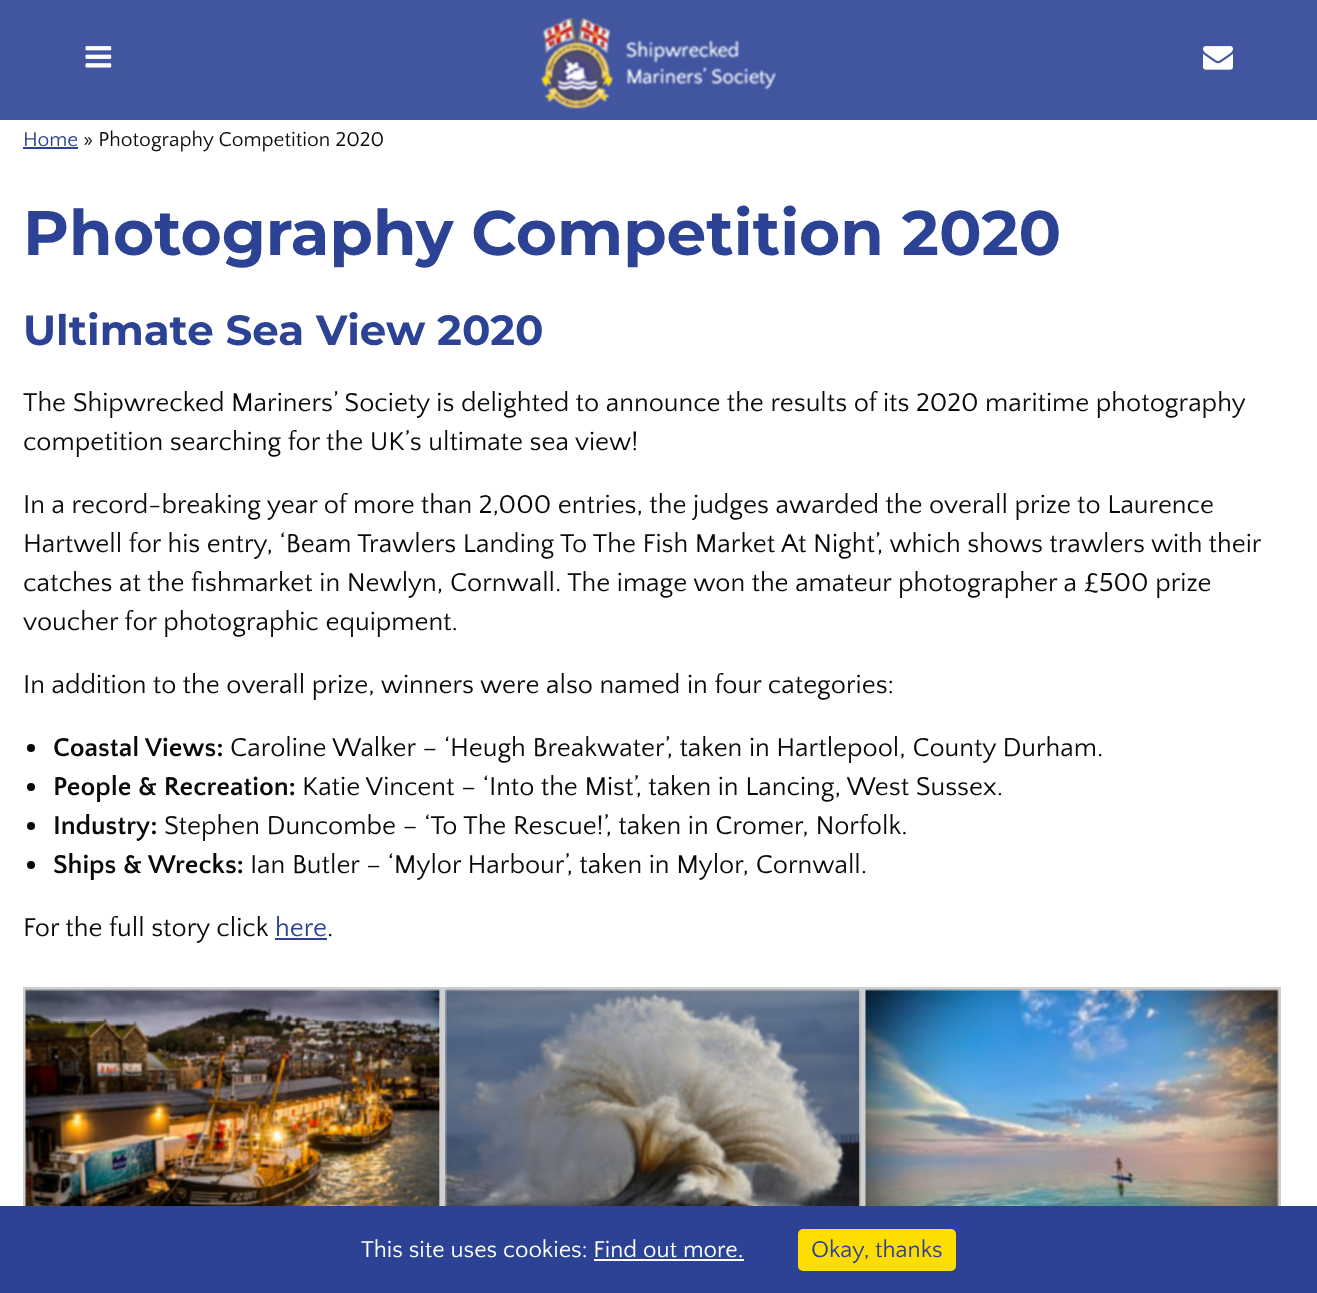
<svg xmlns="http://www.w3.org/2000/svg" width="1317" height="1293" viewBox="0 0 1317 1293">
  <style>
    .t1 { font: 21px Quattrocento Sans; fill: #2c4295; }
    .t2 { font: 21px Quattrocento Sans; fill: #0a0a0a; }
    .t3 { font: bold 63px Montserrat; fill: #2c4295; }
    .t4 { font: bold 42px Montserrat; fill: #2c4295; }
    .t5 { font: 27px Quattrocento Sans; fill: #0a0a0a; }
    .t6 { font: bold 27px Quattrocento Sans; fill: #0a0a0a; }
    .t7 { font: 27px Quattrocento Sans; fill: #2c4295; }
    .t8 { font: 24px Quattrocento Sans; fill: #fff; }
    .t9 { font: 24px Quattrocento Sans; fill: #2c4295; }
  </style>
  <rect width="100%" height="100%" fill="#fff"/>
  <rect x="0" y="0" width="1317" height="120" fill="#4155a0"/>
  <image x="85" y="46" width="27" height="22" href="images/1.png"/>
  <image x="540" y="17" width="237" height="92" href="images/2.png"/>
  <image x="1203" y="46" width="30" height="24" href="images/3.png"/>
  <text x="23" y="146" class="t1">Home</text>
  <rect x="23" y="147" width="55" height="2" fill="#2c4295"/>
  <text x="83" y="146" class="t2">» Photography Competition 2020</text>
  <text x="23" y="255" class="t3">Photography Competition 2020</text>
  <text x="23" y="345" class="t4">Ultimate Sea View 2020</text>
  <text x="23" y="411" class="t5">The Shipwrecked Mariners’ Society is delighted to announce the results of its 2020 maritime photography</text>
  <text x="23" y="450" class="t5">competition searching for the UK’s ultimate sea view!</text>
  <text x="23" y="513" class="t5">In a record-breaking year of more than 2,000 entries, the judges awarded the overall prize to Laurence</text>
  <text x="23" y="552" class="t5">Hartwell for his entry, ‘Beam Trawlers Landing To The Fish Market At Night’, which shows trawlers with their</text>
  <text x="23" y="591" class="t5">catches at the fishmarket in Newlyn, Cornwall. The image won the amateur photographer a £500 prize</text>
  <text x="23" y="630" class="t5">voucher for photographic equipment.</text>
  <text x="23" y="693" class="t5">In addition to the overall prize, winners were also named in four categories:</text>
  <circle cx="31" cy="748" r="4" fill="#0a0a0a"/>
  <text x="53" y="756" class="t6">Coastal Views:</text>
  <text x="230" y="756" class="t5">Caroline Walker – ‘Heugh Breakwater’, taken in Hartlepool, County Durham.</text>
  <circle cx="31" cy="787" r="4" fill="#0a0a0a"/>
  <text x="53" y="795" class="t6">People &amp; Recreation:</text>
  <text x="302" y="795" class="t5">Katie Vincent – ‘Into the Mist’, taken in Lancing, West Sussex.</text>
  <circle cx="31" cy="826" r="4" fill="#0a0a0a"/>
  <text x="53" y="834" class="t6">Industry:</text>
  <text x="164" y="834" class="t5">Stephen Duncombe – ‘To The Rescue!’, taken in Cromer, Norfolk.</text>
  <circle cx="31" cy="865" r="4" fill="#0a0a0a"/>
  <text x="53" y="873" class="t6">Ships &amp; Wrecks:</text>
  <text x="250" y="873" class="t5">Ian Butler – ‘Mylor Harbour’, taken in Mylor, Cornwall.</text>
  <text x="23" y="936" class="t5">For the full story click</text>
  <text x="275" y="936" class="t7">here</text>
  <rect x="275" y="938" width="52" height="2" fill="#2c4295"/>
  <text x="327" y="936" class="t5">.</text>
  <rect x="24.5" y="988.5" width="417" height="297" fill="none" stroke="#cfcfcf" stroke-width="3"/>
  <image x="25" y="989" width="415" height="217" href="images/4.png"/>
  <rect x="444.5" y="988.5" width="417" height="279" fill="none" stroke="#cfcfcf" stroke-width="3"/>
  <image x="445" y="989" width="416" height="217" href="images/5.png"/>
  <rect x="864.5" y="988.5" width="415" height="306" fill="none" stroke="#cfcfcf" stroke-width="3"/>
  <image x="865" y="989" width="414" height="217" href="images/6.png"/>
  <rect x="0" y="1206" width="1317" height="87" fill="#2c4295"/>
  <text x="361" y="1257" class="t8">This site uses cookies: Find out more.</text>
  <rect x="594" y="1259" width="150" height="2" fill="#fff"/>
  <rect x="798" y="1229" width="158" height="42" rx="5" fill="#fede00"/>
  <text x="811" y="1257" class="t9">Okay, thanks</text>
</svg>
